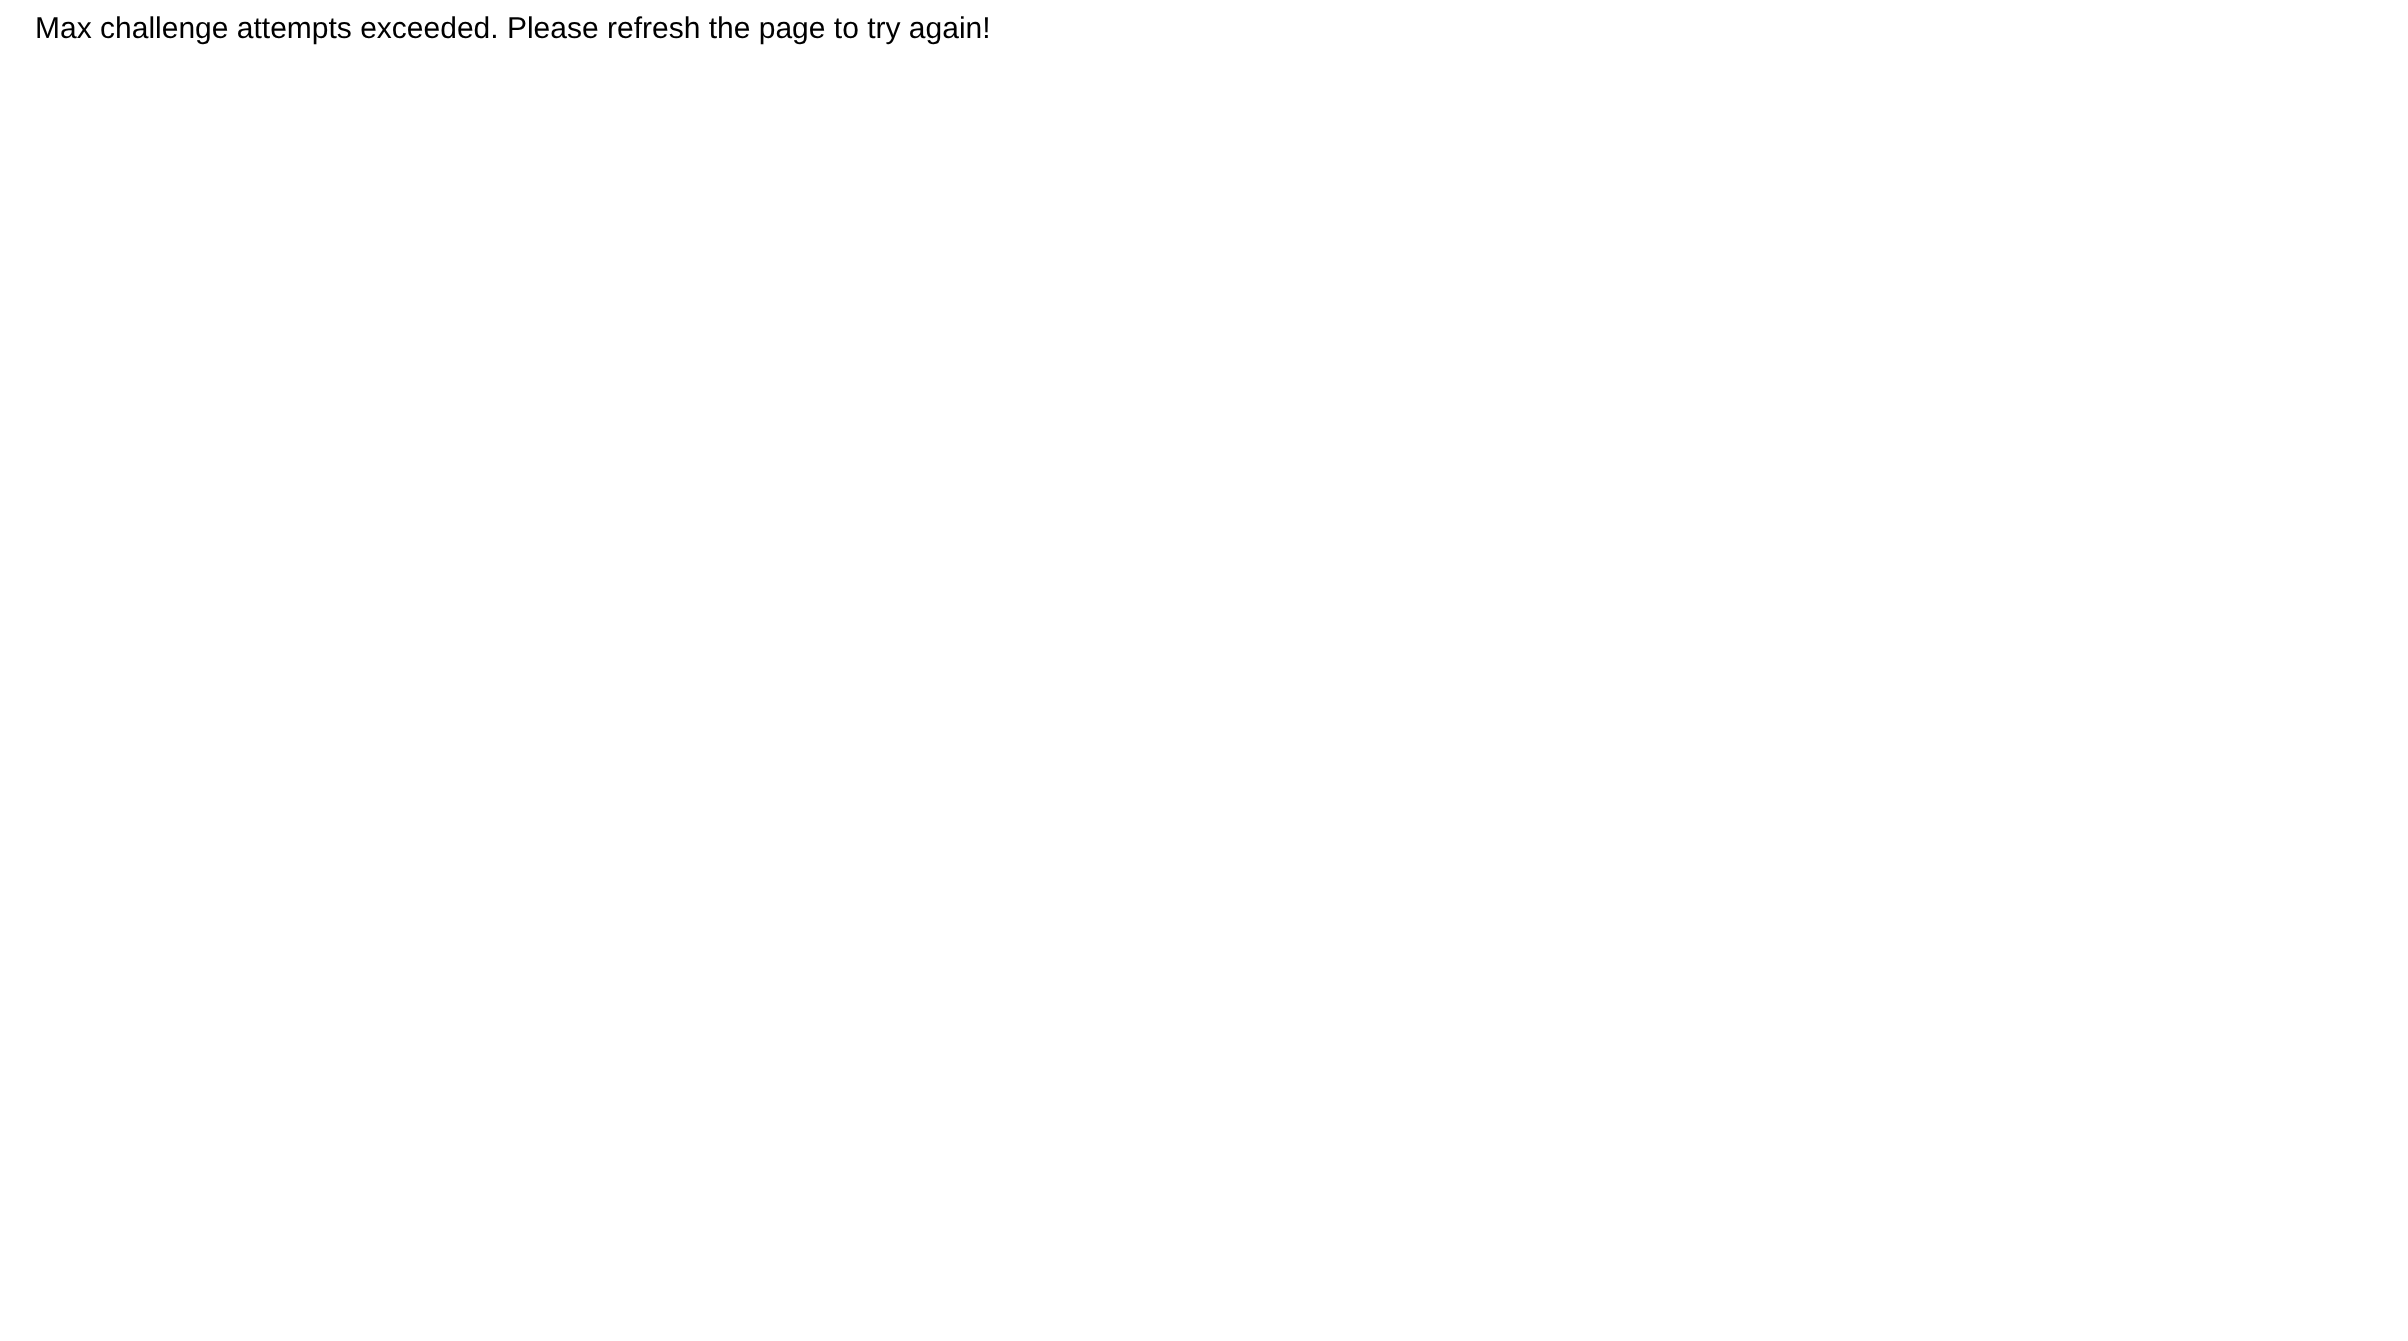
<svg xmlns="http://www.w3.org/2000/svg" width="2408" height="1341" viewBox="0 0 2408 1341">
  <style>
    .t1 { font: 30px Liberation Sans; fill: #000; }
  </style>
  <rect width="100%" height="100%" fill="#fff"/>
  <text x="35" y="38" class="t1">Max challenge attempts exceeded. Please refresh the page to try again!</text>
</svg>
